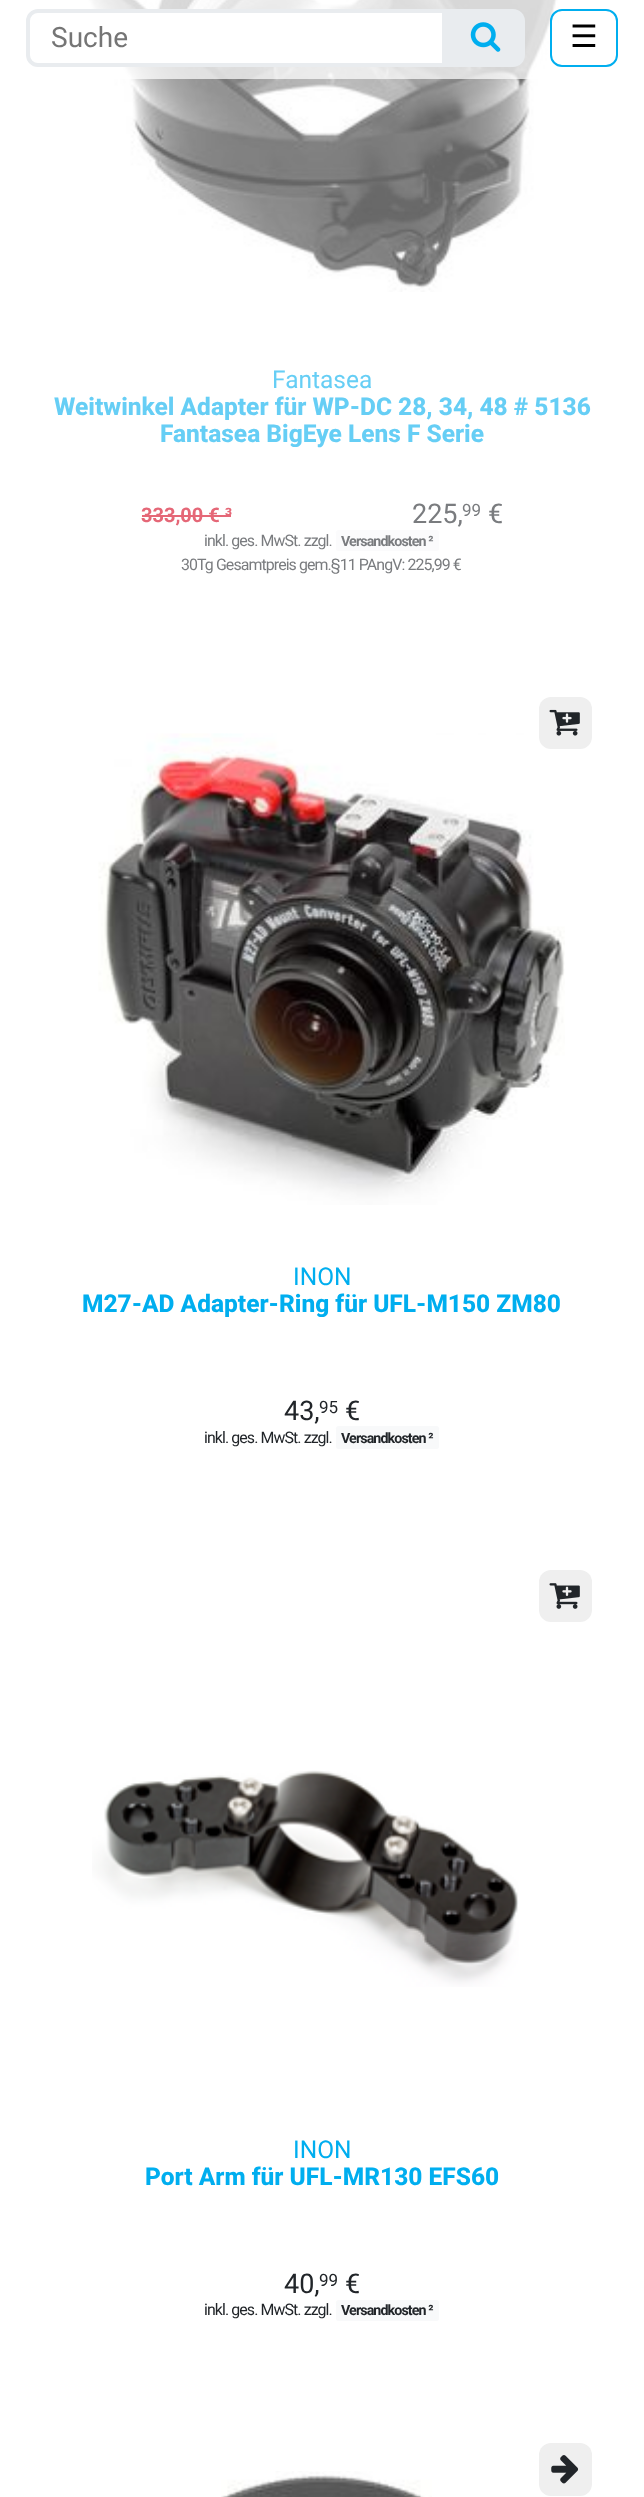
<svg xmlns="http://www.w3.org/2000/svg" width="644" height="2497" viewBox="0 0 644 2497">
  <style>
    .t1 { font: 28px Roboto; fill: #757575; }
    .t2 { font: 31px DejaVu Sans; fill: #000; }
    .t3 { font: 24.5px Roboto; fill: #66cef5; }
    .t4 { font: 800 24.5px Roboto; fill: #66cef5; }
    .t5 { font: bold 20px Roboto; fill: #e56777; }
    .t6 { font: 27px Roboto; fill: #7a7c7f; }
    .t7 { font: 17px Roboto; fill: #7a7c7f; }
    .t8 { font: 15.9px Roboto; letter-spacing: -0.9px; fill: #7a7c7f; }
    .t9 { font: bold 14.25px Roboto; letter-spacing: -0.9px; fill: #7a7c7f; }
    .t10 { font: 24.5px Roboto; fill: #00aeef; }
    .t11 { font: 800 24.5px Roboto; fill: #00aeef; }
    .t12 { font: 27px Roboto; fill: #212529; }
    .t13 { font: 17px Roboto; fill: #212529; }
    .t14 { font: 15.9px Roboto; letter-spacing: -0.9px; fill: #212529; }
    .t15 { font: bold 14.25px Roboto; letter-spacing: -0.9px; fill: #212529; }
  </style>
  <rect width="100%" height="100%" fill="#fff"/>
  <image x="88" y="0" width="471" height="292" href="images/2.png"/>
  <rect x="88" y="0" width="471" height="79" fill="#ffffffb8"/>
  <path d="M38 11H444V65H38C32.5 65 28 60.5 28 55V21C28 15.5 32.5 11 38 11Z" fill="#fff" stroke="#e9ecef" stroke-width="4"/>
  <text x="51" y="47" class="t1">Suche</text>
  <path d="M446 9H513C519.5 9 525 14.5 525 21V55C525 61.5 519.5 67 513 67H446Z" fill="#e9ecef"/>
  <image x="470" y="22" width="31" height="30" href="images/1.png"/>
  <rect x="551" y="10" width="66" height="56" rx="11" fill="none" stroke="#00aeef" stroke-width="2"/>
  <text x="570" y="47" class="t2">☰</text>
  <text x="272" y="388" class="t3">Fantasea</text>
  <text x="54" y="415" class="t4">Weitwinkel Adapter für WP-DC 28, 34, 48 # 5136</text>
  <text x="160" y="442" class="t4">Fantasea BigEye Lens F Serie</text>
  <text x="141" y="522" class="t5">333,00 € ³</text>
  <rect x="142" y="515" width="89" height="2" fill="#e56777"/>
  <text x="412" y="523" class="t6">225,</text>
  <text x="462" y="516" class="t7">99</text>
  <text x="488" y="523" class="t6">€</text>
  <text x="204" y="546" class="t8">inkl. ges. MwSt. zzgl.</text>
  <rect x="336" y="530" width="103" height="21" rx="2.5" fill="#fbfbfc"/>
  <text x="341" y="546" class="t9">Versandkosten ²</text>
  <text x="181" y="570" class="t8">30Tg Gesamtpreis gem.§11 PAngV: 225,99 €</text>
  <image x="98" y="733" width="467" height="472" href="images/4.png"/>
  <rect x="539" y="697" width="53" height="52" rx="12" fill="#efefef"/>
  <image x="549" y="709" width="31" height="27" href="images/3.png"/>
  <text x="293" y="1285" class="t10">INON</text>
  <text x="82" y="1312" class="t11">M27-AD Adapter-Ring für UFL-M150 ZM80</text>
  <text x="284" y="1420" class="t12">43,</text>
  <text x="319" y="1413" class="t13">95</text>
  <text x="345" y="1420" class="t12">€</text>
  <text x="204" y="1443" class="t14">inkl. ges. MwSt. zzgl.</text>
  <rect x="336" y="1426" width="103" height="23" rx="2.5" fill="#f8f9fa"/>
  <text x="341" y="1443" class="t15">Versandkosten ²</text>
  <rect x="539" y="1570" width="53" height="52" rx="12" fill="#efefef"/>
  <image x="549" y="1583" width="31" height="26" href="images/5.png"/>
  <image x="92" y="1770" width="427" height="217" href="images/6.png"/>
  <text x="293" y="2158" class="t10">INON</text>
  <text x="145" y="2185" class="t11">Port Arm für UFL-MR130 EFS60</text>
  <text x="284" y="2293" class="t12">40,</text>
  <text x="319" y="2286" class="t13">99</text>
  <text x="345" y="2293" class="t12">€</text>
  <text x="204" y="2315" class="t14">inkl. ges. MwSt. zzgl.</text>
  <rect x="336" y="2300" width="103" height="21" rx="2.5" fill="#f8f9fa"/>
  <text x="341" y="2315" class="t15">Versandkosten ²</text>
  <image x="221" y="2471" width="211" height="26" href="images/7.png"/>
  <rect x="539" y="2443" width="53" height="53" rx="12" fill="#efefef"/>
  <image x="551" y="2455" width="28" height="29" href="images/8.png"/>
</svg>
